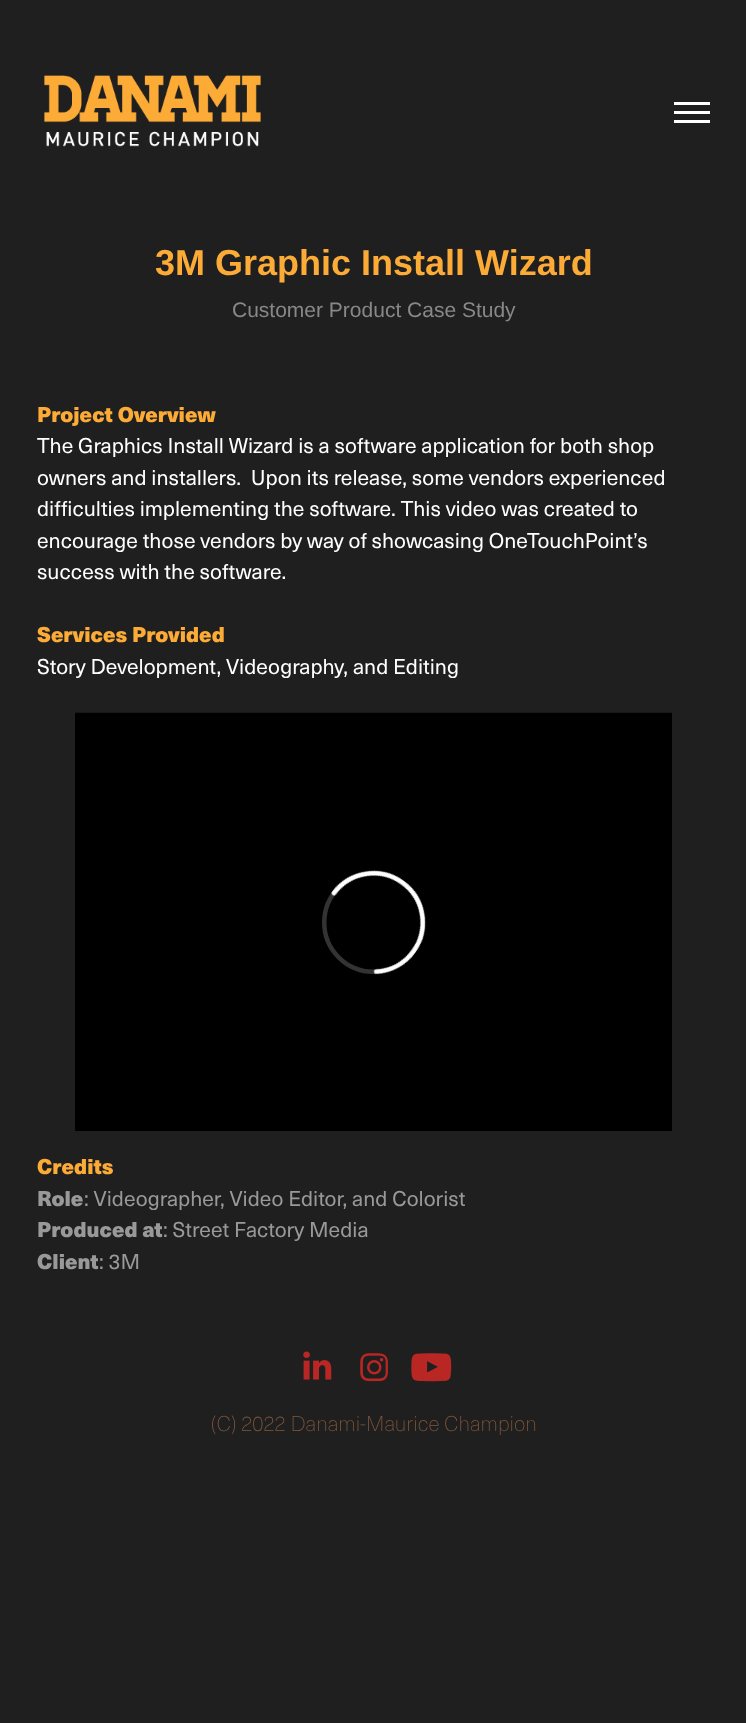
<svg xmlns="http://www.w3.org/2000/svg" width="746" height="1723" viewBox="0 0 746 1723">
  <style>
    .t1 { font: bold 36px Liberation Sans; fill: #fcab37; }
    .t2 { font: 21px Liberation Sans; fill: #888; }
    .t3 { font: 900 21px 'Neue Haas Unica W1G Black'; fill: #fcab37; }
    .t4 { font: 21px 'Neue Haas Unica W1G'; fill: #fff; }
    .t5 { font: 900 21px 'Neue Haas Unica W1G Black'; fill: #999; }
    .t6 { font: 21px 'Neue Haas Unica W1G'; fill: #999; }
    .t7 { font: 100 21px 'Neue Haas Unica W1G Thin'; fill: #82583c; }
  </style>
  <rect width="100%" height="100%" fill="#1f1f1f"/>
  <image x="44" y="75" width="217" height="72" href="images/1.png"/>
  <rect x="674" y="102" width="36" height="3" fill="#fff"/>
  <rect x="674" y="111" width="36" height="3" fill="#fff"/>
  <rect x="674" y="120" width="36" height="3" fill="#fff"/>
  <text x="155" y="275" class="t1">3M Graphic Install Wizard</text>
  <text x="232" y="317" class="t2">Customer Product Case Study</text>
  <text x="37" y="422" class="t3">Project Overview</text>
  <text x="37" y="453" class="t4">The Graphics Install Wizard is a software application for both shop</text>
  <text x="37" y="485" class="t4" xml:space="preserve">owners and installers.  Upon its release, some vendors experienced</text>
  <text x="37" y="516" class="t4">difficulties implementing the software. This video was created to</text>
  <text x="37" y="548" class="t4">encourage those vendors by way of showcasing OneTouchPoint’s</text>
  <text x="37" y="579" class="t4">success with the software.</text>
  <text x="37" y="642" class="t3">Services Provided</text>
  <text x="37" y="674" class="t4">Story Development, Videography, and Editing</text>
  <image x="75" y="712" width="597" height="419" href="images/2.png"/>
  <text x="37" y="1174" class="t3">Credits</text>
  <text x="37" y="1206" class="t5">Role</text>
  <text x="84" y="1206" class="t6">: Videographer, Video Editor, and Colorist</text>
  <text x="37" y="1237" class="t5">Produced at</text>
  <text x="163" y="1237" class="t6">: Street Factory Media</text>
  <text x="37" y="1269" class="t5">Client</text>
  <text x="99" y="1269" class="t6">: 3M</text>
  <image x="303" y="1351" width="29" height="29" href="images/3.png"/>
  <image x="360" y="1353" width="28" height="29" href="images/4.png"/>
  <image x="411" y="1353" width="41" height="29" href="images/5.png"/>
  <text x="211" y="1431" class="t7">(C) 2022 Danami-Maurice Champion</text>
</svg>
